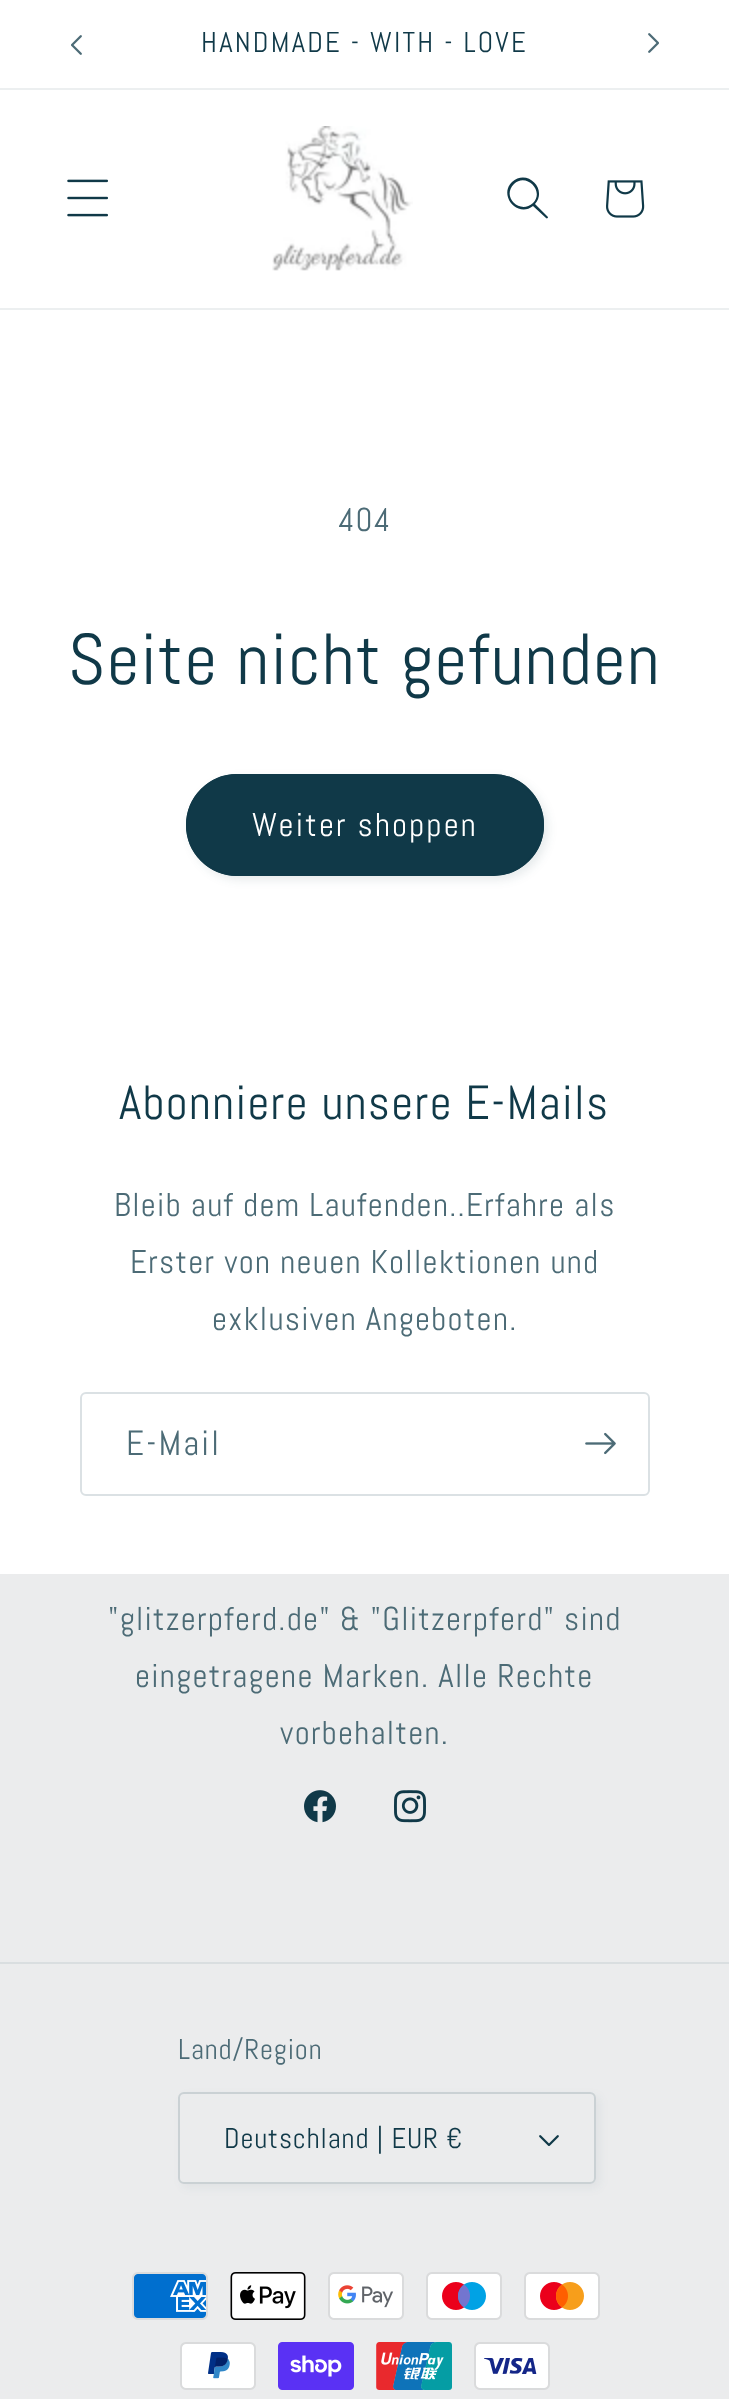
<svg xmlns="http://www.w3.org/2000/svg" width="729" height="2399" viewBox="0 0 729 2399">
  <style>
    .t1 { font: 28.75px Abel; letter-spacing: 2.2px; fill: #103948; }
    .t2 { font: 33px Abel; letter-spacing: 1.3px; fill: #4c6b76; }
    .t3 { font: 72px Abel; letter-spacing: 1.4px; fill: #103948; }
    .t4 { font: 33px Abel; letter-spacing: 2.2px; fill: #fff; }
    .t5 { font: 48px Abel; letter-spacing: 1.4px; fill: #103948; }
    .t6 { font: 35px Abel; letter-spacing: 2.2px; fill: #4c6b76; }
    .t7 { font: 28.5px Abel; letter-spacing: 0.9px; fill: #4c6b76; }
    .t8 { font: 28.5px Abel; letter-spacing: 0.9px; fill: #103948; }
  </style>
  <rect width="100%" height="100%" fill="#fff"/>
  <rect x="0" y="88" width="729" height="2" fill="#eceff0"/>
  <image x="71" y="35" width="11" height="20" href="images/1.png"/>
  <text x="201" y="52" class="t1">HANDMADE - WITH - LOVE</text>
  <image x="648" y="33" width="11" height="20" href="images/2.png"/>
  <rect x="0" y="308" width="729" height="2" fill="#eceff0"/>
  <image x="67" y="179" width="41" height="38" href="images/3.png"/>
  <image x="272" y="126" width="141" height="145" href="images/4.png"/>
  <path d="M533 203C520 215 501 197 514 184C526 172 545 191 533 203M533 206C518 218 498 196 512 182C527 168 548 189 535 204L548 217C548 218 547 219 546 218Z" fill="#103948" fill-rule="evenodd"/>
  <image x="606" y="180" width="39" height="38" href="images/5.png"/>
  <text x="338" y="531" class="t2">404</text>
  <text x="68" y="684" class="t3">Seite nicht gefunden</text>
  <rect x="190" y="778" width="358" height="102" rx="51" fill="#1039481a" filter="blur(5px)"/>
  <rect x="186" y="774" width="358" height="102" rx="51" fill="#103948"/>
  <rect x="187" y="775" width="356" height="100" rx="50" fill="none" stroke="#103948" stroke-width="2"/>
  <text x="252" y="836" class="t4">Weiter shoppen</text>
  <text x="119" y="1119" class="t5">Abonniere unsere E-Mails</text>
  <text x="114" y="1216" class="t2">Bleib auf dem Laufenden..Erfahre als</text>
  <text x="130" y="1273" class="t2">Erster von neuen Kollektionen und</text>
  <text x="212" y="1330" class="t2">exklusiven Angeboten.</text>
  <rect x="81" y="1393" width="568" height="102" rx="5" fill="none" stroke="#dbe1e4" stroke-width="2"/>
  <text x="126" y="1455" class="t6">E-Mail</text>
  <image x="585" y="1432" width="31" height="23" href="images/6.png"/>
  <rect x="0" y="1574" width="729" height="825" fill="#ebeced"/>
  <text x="108" y="1630" class="t2">"glitzerpferd.de" &amp; "Glitzerpferd" sind</text>
  <text x="135" y="1687" class="t2">eingetragene Marken. Alle Rechte</text>
  <text x="280" y="1744" class="t2">vorbehalten.</text>
  <image x="304" y="1790" width="32" height="33" href="images/7.png"/>
  <image x="394" y="1790" width="32" height="33" href="images/8.png"/>
  <rect x="0" y="1962" width="729" height="2" fill="#d9dee0"/>
  <text x="178" y="2059" class="t7">Land/Region</text>
  <rect x="182" y="2096" width="418" height="92" rx="6" fill="#1039480d" filter="blur(5px)"/>
  <rect x="178" y="2092" width="418" height="92" rx="6" fill="#ebeced"/>
  <image x="539" y="2135" width="20" height="11" href="images/9.png"/>
  <rect x="179" y="2093" width="416" height="90" rx="5" fill="none" stroke="#cad1d4" stroke-width="2"/>
  <text x="224" y="2148" class="t8">Deutschland | EUR €</text>
  <image x="132" y="2272" width="76" height="48" href="images/10.png"/>
  <image x="230" y="2272" width="76" height="48" href="images/11.png"/>
  <image x="328" y="2272" width="76" height="48" href="images/12.png"/>
  <image x="426" y="2272" width="76" height="48" href="images/13.png"/>
  <image x="524" y="2272" width="76" height="48" href="images/14.png"/>
  <image x="180" y="2342" width="76" height="48" href="images/15.png"/>
  <image x="278" y="2342" width="76" height="48" href="images/16.png"/>
  <image x="376" y="2342" width="76" height="48" href="images/17.png"/>
  <image x="474" y="2342" width="76" height="48" href="images/18.png"/>
</svg>
